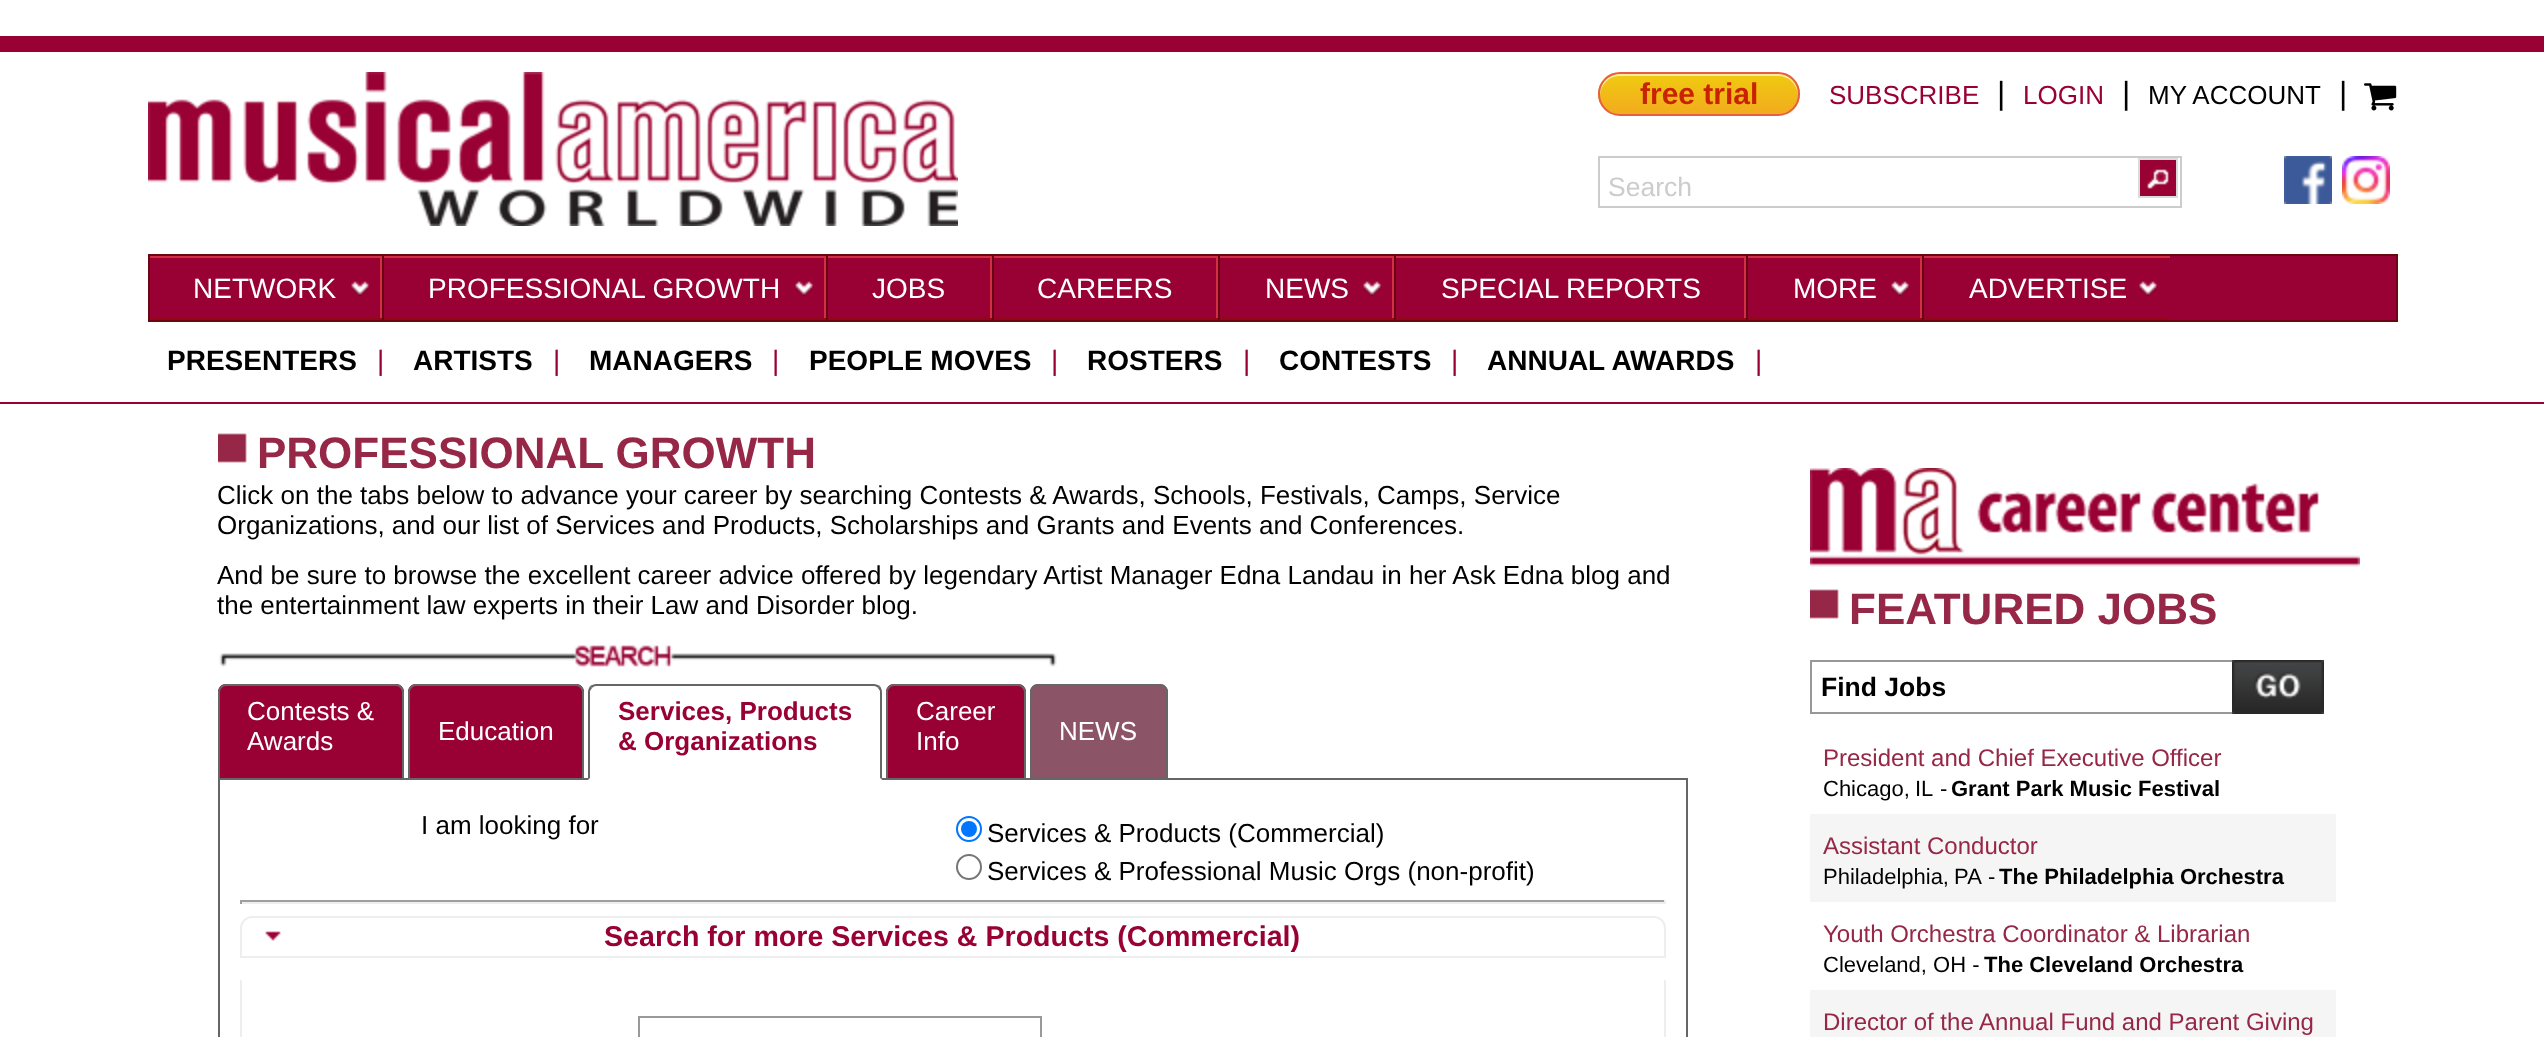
<svg xmlns="http://www.w3.org/2000/svg" width="2544" height="1037" viewBox="0 0 2544 1037">
  <style>
    .t1 { font: bold 30px Liberation Sans; fill: #c92200; }
    .t2 { font: 26px Liberation Sans; fill: #903; }
    .t3 { font: 32px Liberation Sans; fill: #000; }
    .t4 { font: 26px Liberation Sans; fill: #000; }
    .t5 { font: 26.5px Liberation Sans; fill: #ccc; }
    .t6 { font: 28px Liberation Sans; fill: #fff; }
    .t7 { font: bold 28px Liberation Sans; fill: #000; }
    .t8 { font: 28px Liberation Sans; fill: #903; }
    .t9 { font: bold 44px Liberation Sans; fill: #962747; }
    .t10 { font: 26px Liberation Sans; fill: #fff; }
    .t11 { font: bold 26px Liberation Sans; fill: #903; }
    .t12 { font: bold 28.6px Liberation Sans; fill: #903; }
    .t13 { font: bold 26.5px Liberation Sans; fill: #000; }
    .t14 { font: 24px Liberation Sans; fill: #962747; }
    .t15 { font: 22px Liberation Sans; fill: #000; }
    .t16 { font: bold 22px Liberation Sans; fill: #000; }
  </style>
  <defs>
    <clipPath id="clip1"><rect x="1598" y="72" width="202" height="44" rx="22"/></clipPath>
    <linearGradient id="g1" gradientUnits="userSpaceOnUse" x1="1600" y1="74" x2="1600" y2="114"><stop offset="0.05" stop-color="#f0c911"/><stop offset="1" stop-color="#f2ab1e"/></linearGradient>
  </defs>
  <rect width="100%" height="100%" fill="#fff"/>
  <rect x="0" y="36" width="2544" height="16" fill="#903"/>
  <image x="148" y="72" width="810" height="154" href="images/1.png"/>
  <g clip-path="url(#clip1)">
    <rect x="1598" y="74" width="202" height="40" fill="url(#g1)"/>
  </g>
  <path d="M1620 76H1778C1789 76 1797 84 1798 95V94C1798 83 1789 74 1778 74H1620C1609 74 1600 83 1600 94V95C1601 84 1609 76 1620 76Z" fill="#f9eca0"/>
  <rect x="1599" y="73" width="200" height="42" rx="21" fill="none" stroke="#e65f44" stroke-width="2"/>
  <text x="1640" y="104" class="t1">free trial</text>
  <text x="1829" y="104" class="t2">SUBSCRIBE</text>
  <text x="1997" y="104" class="t3">|</text>
  <text x="2023" y="104" class="t2">LOGIN</text>
  <text x="2122" y="104" class="t3">|</text>
  <text x="2148" y="104" class="t4">MY ACCOUNT</text>
  <text x="2339" y="104" class="t3">|</text>
  <image x="2364" y="83" width="33" height="28" href="images/2.png"/>
  <rect x="1599" y="157" width="582" height="50" fill="none" stroke="#ccc" stroke-width="2"/>
  <text x="1608" y="196" class="t5">Search</text>
  <rect x="2139" y="159" width="38" height="38" fill="#903" stroke="#d8dcdf" stroke-width="2"/>
  <image x="2147" y="169" width="22" height="20" href="images/3.png"/>
  <image x="2284" y="156" width="48" height="48" href="images/4.png"/>
  <image x="2342" y="156" width="48" height="48" href="images/5.png"/>
  <rect x="149" y="255" width="2248" height="66" fill="#903" stroke="#690611" stroke-width="2"/>
  <rect x="150" y="256" width="2020" height="2" fill="#d32f43"/>
  <rect x="380" y="256" width="2" height="64" fill="#d32f43"/>
  <rect x="150" y="318" width="232" height="2" fill="#920616"/>
  <text x="193" y="298" class="t6">NETWORK</text>
  <image x="351" y="281" width="19" height="16" href="images/6.png"/>
  <rect x="824" y="256" width="2" height="64" fill="#d32f43"/>
  <rect x="382" y="318" width="444" height="2" fill="#920616"/>
  <rect x="382" y="256" width="2" height="64" fill="#690611"/>
  <text x="428" y="298" class="t6">PROFESSIONAL GROWTH</text>
  <image x="795" y="281" width="19" height="16" href="images/6.png"/>
  <rect x="990" y="256" width="2" height="64" fill="#d32f43"/>
  <rect x="826" y="318" width="166" height="2" fill="#920616"/>
  <rect x="826" y="256" width="2" height="64" fill="#690611"/>
  <text x="872" y="298" class="t6">JOBS</text>
  <rect x="1216" y="256" width="2" height="64" fill="#d32f43"/>
  <rect x="992" y="318" width="226" height="2" fill="#920616"/>
  <rect x="992" y="256" width="2" height="64" fill="#690611"/>
  <text x="1037" y="298" class="t6">CAREERS</text>
  <rect x="1392" y="256" width="2" height="64" fill="#d32f43"/>
  <rect x="1218" y="318" width="176" height="2" fill="#920616"/>
  <rect x="1218" y="256" width="2" height="64" fill="#690611"/>
  <text x="1265" y="298" class="t6">NEWS</text>
  <image x="1363" y="281" width="19" height="16" href="images/6.png"/>
  <rect x="1744" y="256" width="2" height="64" fill="#d32f43"/>
  <rect x="1394" y="318" width="352" height="2" fill="#920616"/>
  <rect x="1394" y="256" width="2" height="64" fill="#690611"/>
  <text x="1441" y="298" class="t6">SPECIAL REPORTS</text>
  <rect x="1920" y="256" width="2" height="64" fill="#d32f43"/>
  <rect x="1746" y="318" width="424" height="2" fill="#920616"/>
  <rect x="1746" y="256" width="2" height="64" fill="#690611"/>
  <text x="1793" y="298" class="t6">MORE</text>
  <image x="1891" y="281" width="19" height="16" href="images/6.png"/>
  <rect x="1922" y="256" width="2" height="64" fill="#690611"/>
  <text x="1969" y="298" class="t6">ADVERTISE</text>
  <image x="2139" y="281" width="19" height="16" href="images/6.png"/>
  <text x="167" y="370" class="t7">PRESENTERS</text>
  <text x="377" y="370" class="t8">|</text>
  <text x="413" y="370" class="t7">ARTISTS</text>
  <text x="553" y="370" class="t8">|</text>
  <text x="589" y="370" class="t7">MANAGERS</text>
  <text x="772" y="370" class="t8">|</text>
  <text x="809" y="370" class="t7">PEOPLE MOVES</text>
  <text x="1051" y="370" class="t8">|</text>
  <text x="1087" y="370" class="t7">ROSTERS</text>
  <text x="1243" y="370" class="t8">|</text>
  <text x="1279" y="370" class="t7">CONTESTS</text>
  <text x="1451" y="370" class="t8">|</text>
  <text x="1487" y="370" class="t7">ANNUAL AWARDS</text>
  <text x="1755" y="370" class="t8">|</text>
  <rect x="0" y="402" width="2544" height="2" fill="#903"/>
  <image x="218" y="433" width="29" height="30" href="images/7.png"/>
  <text x="257" y="468" class="t9">PROFESSIONAL GROWTH</text>
  <text x="217" y="504" class="t4">Click on the tabs below to advance your career by searching Contests &amp; Awards, Schools, Festivals, Camps, Service</text>
  <text x="217" y="534" class="t4">Organizations, and our list of Services and Products, Scholarships and Grants and Events and Conferences.</text>
  <text x="217" y="584" class="t4">And be sure to browse the excellent career advice offered by legendary Artist Manager Edna Landau in her Ask Edna blog and</text>
  <text x="217" y="614" class="t4">the entertainment law experts in their Law and Disorder blog.</text>
  <image x="219" y="645" width="838" height="22" href="images/8.png"/>
  <rect x="218" y="778" width="1470" height="2" fill="#666"/>
  <path d="M226 684H396C400.5 684 404 687.5 404 692V778H218V692C218 687.5 221.5 684 226 684Z" fill="#903"/>
  <path d="M226 684H396C400 684 404 688 404 692V778H218V692C218 688 222 684 226 684ZM226 686H396C399 686 402 689 402 692V778H220V692C220 689 223 686 226 686Z" fill="#666" fill-rule="evenodd"/>
  <text x="247" y="720" class="t10">Contests &amp;</text>
  <text x="247" y="750" class="t10">Awards</text>
  <path d="M416 684H576C580.5 684 584 687.5 584 692V778H408V692C408 687.5 411.5 684 416 684Z" fill="#903"/>
  <path d="M416 684H576C580 684 584 688 584 692V778H408V692C408 688 412 684 416 684ZM416 686H576C579 686 582 689 582 692V778H410V692C410 689 413 686 416 686Z" fill="#666" fill-rule="evenodd"/>
  <text x="438" y="740" class="t10">Education</text>
  <path d="M596 684H874C878.5 684 882 687.5 882 692V780H588V692C588 687.5 591.5 684 596 684Z" fill="#fff"/>
  <path d="M596 684C594 684 592 685 590 686L592 688C593 687 594 686 596 686H874C876 686 877 687 878 688L880 686C878 685 876 684 874 684Z" fill="#666"/>
  <path d="M882 780V692C882 690 881 688 880 686L878 688L880 691V778Z" fill="#666"/>
  <path d="M882 780L880 778H590L588 780Z" fill="#fff"/>
  <path d="M588 780L590 778V691L592 688L590 686C589 688 588 690 588 692Z" fill="#666"/>
  <text x="618" y="720" class="t11">Services, Products</text>
  <text x="618" y="750" class="t11">&amp; Organizations</text>
  <path d="M894 684H1018C1022.5 684 1026 687.5 1026 692V778H886V692C886 687.5 889.5 684 894 684Z" fill="#903"/>
  <path d="M894 684H1018C1022 684 1026 688 1026 692V778H886V692C886 688 890 684 894 684ZM894 686H1018C1021 686 1024 689 1024 692V778H888V692C888 689 891 686 894 686Z" fill="#666" fill-rule="evenodd"/>
  <text x="916" y="720" class="t10">Career</text>
  <text x="916" y="750" class="t10">Info</text>
  <path d="M1038 684H1160C1164.5 684 1168 687.5 1168 692V778H1030V692C1030 687.5 1033.5 684 1038 684Z" fill="#8c5567"/>
  <path d="M1038 684H1160C1164 684 1168 688 1168 692V778H1030V692C1030 688 1034 684 1038 684ZM1038 686H1160C1163 686 1166 689 1166 692V778H1032V692C1032 689 1035 686 1038 686Z" fill="#666" fill-rule="evenodd"/>
  <text x="1059" y="740" class="t10">NEWS</text>
  <path d="M218 780H1688V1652C1688 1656 1684 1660 1680 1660H226C222 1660 218 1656 218 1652ZM220 780H1686V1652C1686 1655 1683 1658 1680 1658H226C223 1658 220 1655 220 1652Z" fill="#666" fill-rule="evenodd"/>
  <text x="421" y="834" class="t4">I am looking for</text>
  <circle cx="969" cy="829" r="12" fill="none" stroke="#0075ff" stroke-width="2"/>
  <circle cx="969" cy="829" r="8" fill="#0075ff"/>
  <text x="987" y="842" class="t4">Services &amp; Products (Commercial)</text>
  <circle cx="969" cy="867" r="12" fill="none" stroke="#767676" stroke-width="2"/>
  <text x="987" y="880" class="t4">Services &amp; Professional Music Orgs (non-profit)</text>
  <rect x="240" y="900" width="1426" height="2" fill="#9f9f9f"/>
  <rect x="1664" y="900" width="2" height="4" fill="#eee"/>
  <rect x="240" y="902" width="1426" height="2" fill="#eee"/>
  <rect x="240" y="900" width="2" height="4" fill="#9f9f9f"/>
  <path d="M252 917H1654C1660 917 1665 922 1665 928V957H241V928C241 922 246 917 252 917Z" fill="none" stroke="#eee" stroke-width="2"/>
  <image x="265" y="931" width="16" height="10" href="images/9.png"/>
  <text x="604" y="946" class="t12">Search for more Services &amp; Products (Commercial)</text>
  <path d="M240 980H1666V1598C1666 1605 1661 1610 1654 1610H252C245 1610 240 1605 240 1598ZM242 980H1664V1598C1664 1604 1660 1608 1654 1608H252C246 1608 242 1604 242 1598Z" fill="#eee" fill-rule="evenodd"/>
  <rect x="639" y="1017" width="402" height="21" fill="none" stroke="#999" stroke-width="2"/>
  <image x="1810" y="468" width="550" height="99" href="images/10.png"/>
  <image x="1810" y="589" width="29" height="30" href="images/7.png"/>
  <text x="1849" y="624" class="t9">FEATURED JOBS</text>
  <rect x="1810" y="660" width="422" height="2" fill="#989898"/>
  <rect x="1810" y="712" width="422" height="2" fill="#989898"/>
  <rect x="1810" y="660" width="2" height="54" fill="#989898"/>
  <text x="1821" y="696" class="t13">Find Jobs</text>
  <image x="2232" y="660" width="92" height="54" href="images/11.png"/>
  <text x="1823" y="766" class="t14">President and Chief Executive Officer</text>
  <text x="1823" y="796" word-spacing="-1" class="t15">Chicago, IL</text>
  <text x="1940" y="796" class="t15">-</text>
  <text x="1951" y="796" class="t16">Grant Park Music Festival</text>
  <rect x="1810" y="814" width="526" height="88" fill="#f5f5f5"/>
  <text x="1823" y="854" class="t14">Assistant Conductor</text>
  <text x="1823" y="884" word-spacing="-1" class="t15">Philadelphia, PA</text>
  <text x="1988" y="884" class="t15">-</text>
  <text x="1999" y="884" class="t16">The Philadelphia Orchestra</text>
  <text x="1823" y="942" class="t14">Youth Orchestra Coordinator &amp; Librarian</text>
  <text x="1823" y="972" class="t15">Cleveland, OH -</text>
  <text x="1984" y="972" class="t16">The Cleveland Orchestra</text>
  <rect x="1810" y="990" width="526" height="47" fill="#f5f5f5"/>
  <text x="1823" y="1030" class="t14">Director of the Annual Fund and Parent Giving</text>
</svg>
